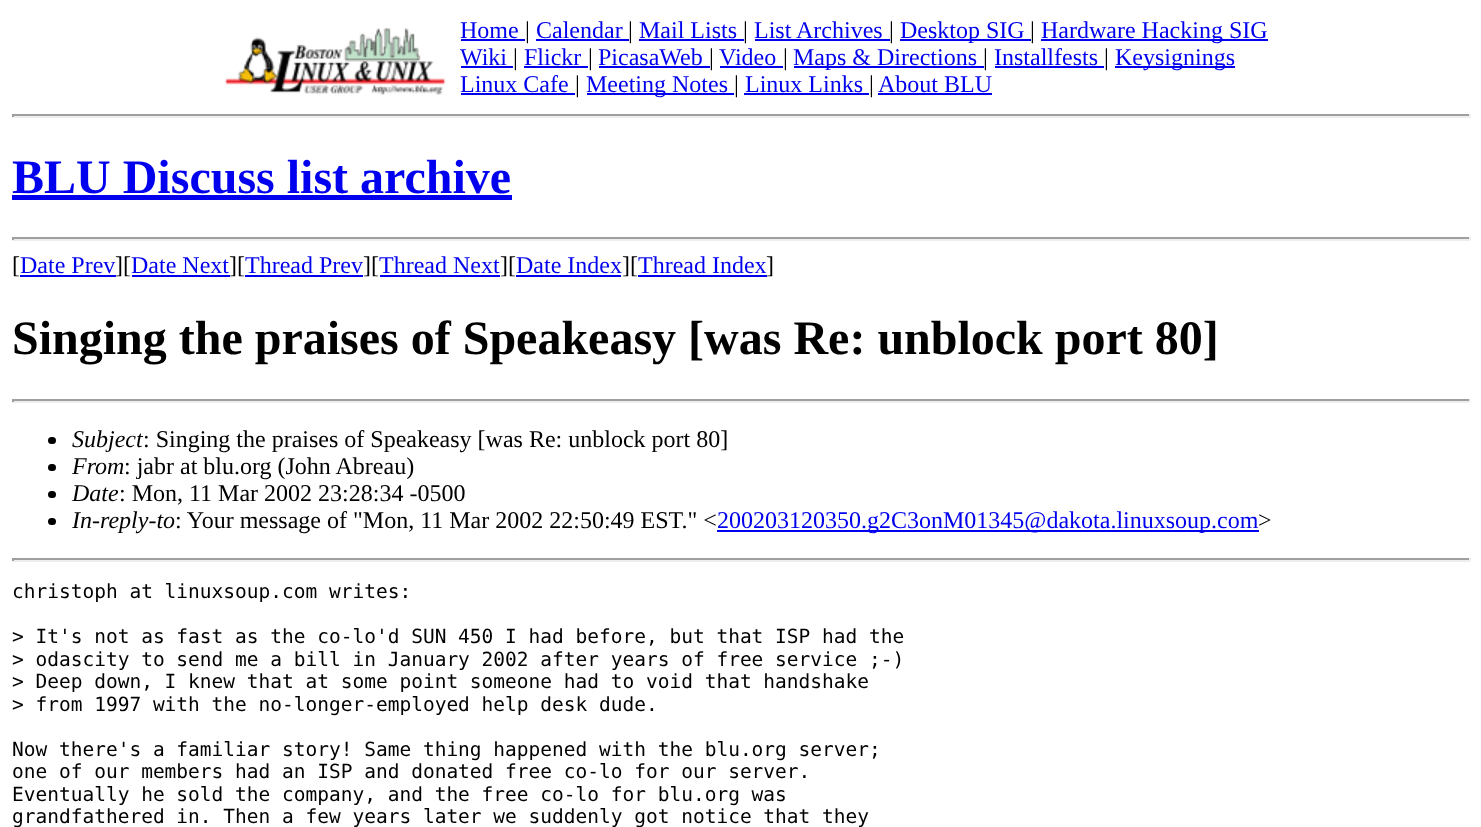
<svg xmlns="http://www.w3.org/2000/svg" width="1481" height="827" viewBox="0 0 1481 827">
  <style>
    .t1 { font: 24px Liberation Serif; fill: #00e; }
    .t2 { font: 24px Liberation Serif; fill: #000; }
    .t3 { font: bold 48px Liberation Serif; fill: #00e; }
    .t4 { font: bold 48px Liberation Serif; fill: #000; }
    .t5 { font: italic 24px Liberation Serif; fill: #000; }
    .t6 { font: 19.5px DejaVu Sans Mono; fill: #000; }
  </style>
  <rect width="100%" height="100%" fill="#fff"/>
  <image x="224" y="28" width="222" height="67" href="images/1.png"/>
  <text x="460" y="38" class="t1">Home</text>
  <rect x="461" y="39" width="64" height="2" fill="#00e"/>
  <text x="525" y="38" class="t2">|</text>
  <text x="536" y="38" class="t1">Calendar</text>
  <rect x="536" y="39" width="93" height="2" fill="#00e"/>
  <text x="628" y="38" class="t2">|</text>
  <text x="639" y="38" class="t1">Mail Lists</text>
  <rect x="639" y="39" width="105" height="2" fill="#00e"/>
  <text x="743" y="38" class="t2">|</text>
  <text x="754" y="38" class="t1">List Archives</text>
  <rect x="755" y="39" width="135" height="2" fill="#00e"/>
  <text x="889" y="38" class="t2">|</text>
  <rect x="900" y="39" width="131" height="2" fill="#00e"/>
  <text x="900" y="38" class="t1">Desktop SIG</text>
  <text x="1030" y="38" class="t2">|</text>
  <rect x="1041" y="39" width="227" height="2" fill="#00e"/>
  <text x="1041" y="38" class="t1">Hardware Hacking SIG</text>
  <text x="460" y="65" class="t1">Wiki</text>
  <rect x="461" y="66" width="52" height="2" fill="#00e"/>
  <text x="513" y="65" class="t2">|</text>
  <text x="524" y="65" class="t1">Flickr</text>
  <rect x="524" y="66" width="64" height="2" fill="#00e"/>
  <text x="588" y="65" class="t2">|</text>
  <text x="598" y="65" class="t1">PicasaWeb</text>
  <rect x="599" y="66" width="111" height="2" fill="#00e"/>
  <text x="709" y="65" class="t2">|</text>
  <text x="719" y="65" class="t1">Video</text>
  <rect x="720" y="66" width="63" height="2" fill="#00e"/>
  <text x="783" y="65" class="t2">|</text>
  <rect x="794" y="66" width="190" height="2" fill="#00e"/>
  <text x="793" y="65" class="t1">Maps &amp; Directions</text>
  <text x="983" y="65" class="t2">|</text>
  <text x="994" y="65" class="t1">Installfests</text>
  <rect x="995" y="66" width="109" height="2" fill="#00e"/>
  <text x="1104" y="65" class="t2">|</text>
  <rect x="1115" y="66" width="120" height="2" fill="#00e"/>
  <text x="1115" y="65" class="t1">Keysignings</text>
  <text x="460" y="92" class="t1">Linux Cafe</text>
  <rect x="461" y="93" width="114" height="2" fill="#00e"/>
  <text x="575" y="92" class="t2">|</text>
  <rect x="587" y="93" width="147" height="2" fill="#00e"/>
  <text x="586" y="92" class="t1">Meeting Notes</text>
  <text x="734" y="92" class="t2">|</text>
  <text x="745" y="92" class="t1">Linux Links</text>
  <rect x="744" y="93" width="125" height="2" fill="#00e"/>
  <text x="869" y="92" class="t2">|</text>
  <text x="878" y="92" class="t1">About BLU</text>
  <rect x="878" y="93" width="114" height="2" fill="#00e"/>
  <rect x="12" y="114" width="1458" height="2" fill="#9f9f9f"/>
  <rect x="1469" y="114" width="2" height="3" fill="#eee"/>
  <rect x="12" y="116" width="1458" height="2" fill="#eee"/>
  <rect x="12" y="114" width="2" height="3" fill="#9f9f9f"/>
  <text x="12" y="193" class="t3">BLU Discuss list archive</text>
  <rect x="12" y="195" width="500" height="5" fill="#00e"/>
  <rect x="12" y="237" width="1458" height="2" fill="#9f9f9f"/>
  <rect x="1469" y="237" width="2" height="3" fill="#eee"/>
  <rect x="12" y="239" width="1458" height="2" fill="#eee"/>
  <rect x="12" y="237" width="2" height="3" fill="#9f9f9f"/>
  <text x="12" y="273" class="t2">[</text>
  <text x="20" y="273" class="t1">Date Prev</text>
  <rect x="20" y="275" width="96" height="2" fill="#00e"/>
  <text x="115" y="273" class="t2">][</text>
  <text x="131" y="273" class="t1">Date Next</text>
  <rect x="132" y="275" width="98" height="2" fill="#00e"/>
  <text x="229" y="273" class="t2">][</text>
  <text x="245" y="273" class="t1">Thread Prev</text>
  <rect x="245" y="275" width="118" height="2" fill="#00e"/>
  <text x="363" y="273" class="t2">][</text>
  <text x="379" y="273" class="t1">Thread Next</text>
  <rect x="380" y="275" width="120" height="2" fill="#00e"/>
  <text x="500" y="273" class="t2">][</text>
  <text x="516" y="273" class="t1">Date Index</text>
  <rect x="516" y="275" width="105" height="2" fill="#00e"/>
  <text x="622" y="273" class="t2">][</text>
  <text x="638" y="273" class="t1">Thread Index</text>
  <rect x="638" y="275" width="129" height="2" fill="#00e"/>
  <text x="766" y="273" class="t2">]</text>
  <text x="12" y="354" class="t4">Singing the praises of Speakeasy [was Re: unblock port 80]</text>
  <rect x="12" y="399" width="1458" height="2" fill="#9f9f9f"/>
  <rect x="1469" y="399" width="2" height="3" fill="#eee"/>
  <rect x="12" y="401" width="1458" height="2" fill="#eee"/>
  <rect x="12" y="399" width="2" height="3" fill="#9f9f9f"/>
  <rect x="48" y="437" width="8" height="7" rx="3.5" fill="#000"/>
  <text x="72" y="447" class="t5">Subject</text>
  <text x="143" y="447" class="t2">: Singing the praises of Speakeasy [was Re: unblock port 80]</text>
  <rect x="48" y="464" width="8" height="7" rx="3.5" fill="#000"/>
  <text x="72" y="474" class="t5">From</text>
  <text x="124" y="474" class="t2">: jabr at blu.org (John Abreau)</text>
  <rect x="48" y="491" width="8" height="7" rx="3.5" fill="#000"/>
  <text x="72" y="501" class="t5">Date</text>
  <text x="119" y="501" class="t2">: Mon, 11 Mar 2002 23:28:34 -0500</text>
  <rect x="48" y="518" width="8" height="7" rx="3.5" fill="#000"/>
  <text x="72" y="528" class="t5">In-reply-to</text>
  <text x="175" y="528" class="t2">: Your message of "Mon, 11 Mar 2002 22:50:49 EST." &lt;</text>
  <rect x="717" y="530" width="542" height="2" fill="#00e"/>
  <text x="717" y="528" class="t1">200203120350.g2C3onM01345@dakota.linuxsoup.com</text>
  <text x="1258" y="528" class="t2">&gt;</text>
  <rect x="12" y="558" width="1458" height="2" fill="#9f9f9f"/>
  <rect x="1469" y="558" width="2" height="3" fill="#eee"/>
  <rect x="12" y="560" width="1458" height="2" fill="#eee"/>
  <rect x="12" y="558" width="2" height="3" fill="#9f9f9f"/>
  <text x="12" y="598" class="t6">christoph at linuxsoup.com writes:</text>
  <text x="12" y="643" class="t6">&gt; It's not as fast as the co-lo'd SUN 450 I had before, but that ISP had the</text>
  <text x="12" y="666" class="t6">&gt; odascity to send me a bill in January 2002 after years of free service ;-)</text>
  <text x="12" y="688" class="t6">&gt; Deep down, I knew that at some point someone had to void that handshake</text>
  <text x="12" y="711" class="t6">&gt; from 1997 with the no-longer-employed help desk dude.</text>
  <text x="12" y="756" class="t6">Now there's a familiar story! Same thing happened with the blu.org server;</text>
  <text x="12" y="778" class="t6">one of our members had an ISP and donated free co-lo for our server.</text>
  <text x="12" y="801" class="t6">Eventually he sold the company, and the free co-lo for blu.org was</text>
  <text x="12" y="823" class="t6">grandfathered in. Then a few years later we suddenly got notice that they</text>
</svg>
